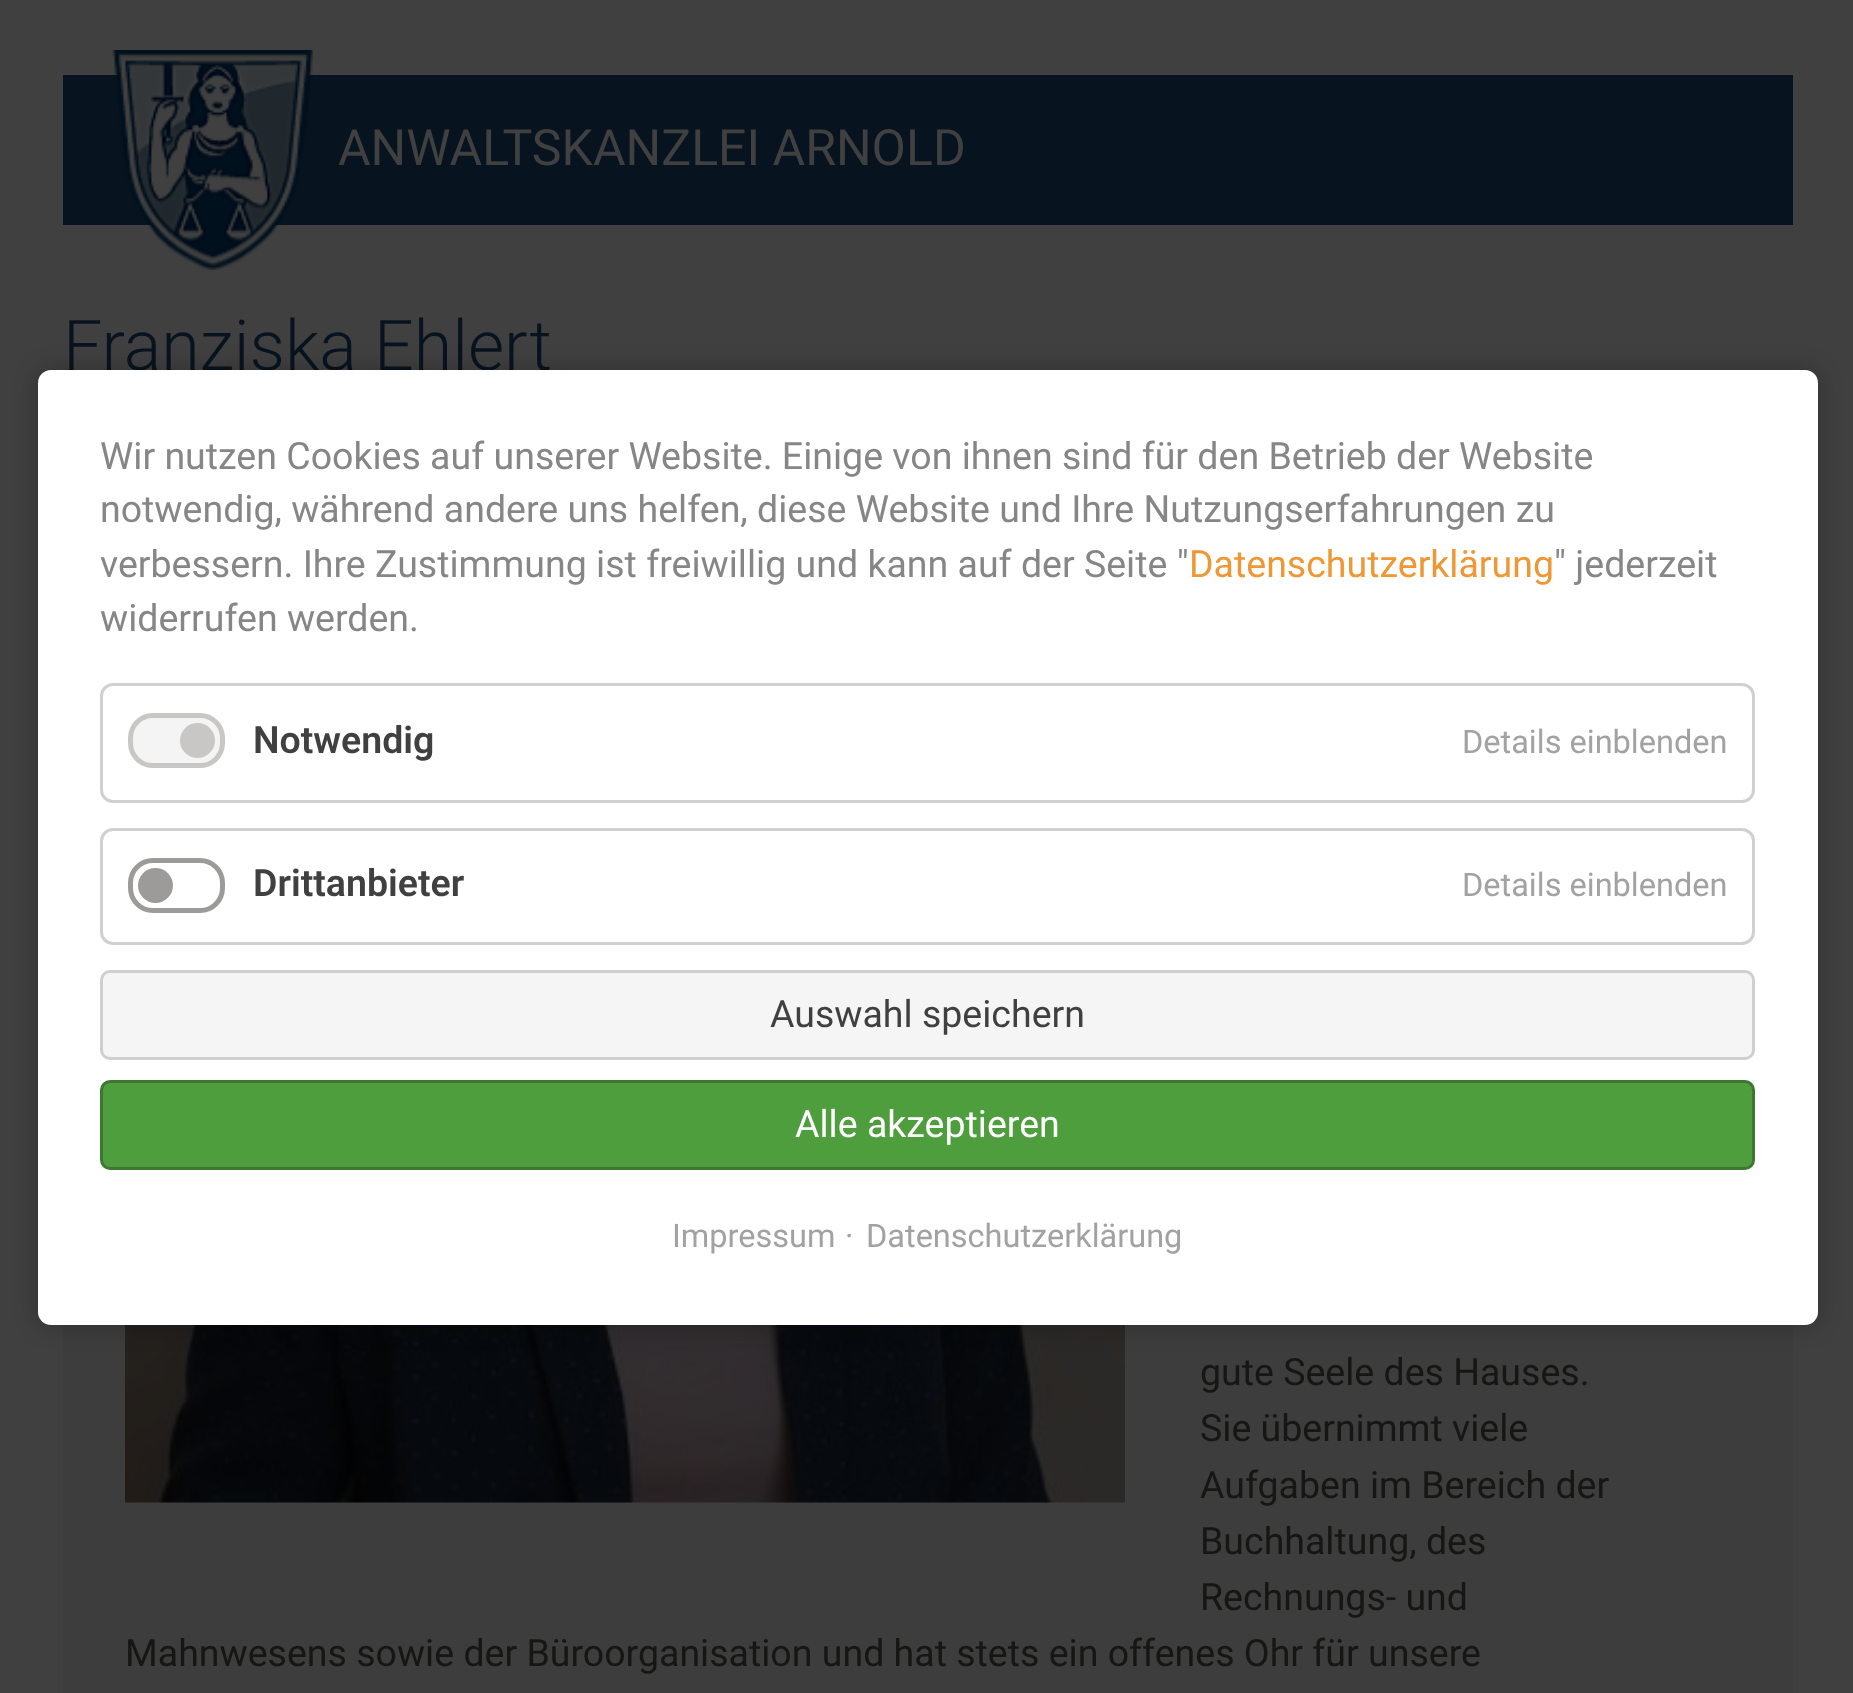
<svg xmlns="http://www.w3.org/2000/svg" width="1853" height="1693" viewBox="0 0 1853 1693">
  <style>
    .t1 { font: 50px Roboto; fill: #404040; }
    .t2 { font: 300 70px Roboto; fill: #07141f; }
    .t3 { font: 37.5px Roboto; fill: #161615; }
    .t4 { font: 37.5px Roboto; fill: #868686; }
    .t5 { font: 37.5px Roboto; fill: #ee9835; }
    .t6 { font: 600 37.5px Roboto; fill: #404040; }
    .t7 { font: 32.5px Roboto; fill: #a2a2a2; }
    .t8 { font: 37.5px Roboto; fill: #404040; }
    .t9 { font: 37.5px Roboto; fill: #fff; }
  </style>
  <rect width="100%" height="100%" fill="#404040"/>
  <rect x="63" y="75" width="1730" height="150" fill="#07141f"/>
  <image x="112" y="50" width="201" height="220" href="images/1.png"/>
  <text x="338" y="165" class="t1">ANWALTSKANZLEI ARNOLD</text>
  <text x="63" y="370" class="t2">Franziska Ehlert</text>
  <rect x="63" y="1325" width="1730" height="368" fill="#3d3d3d"/>
  <image x="125" y="1325" width="1000" height="178" href="images/2.png"/>
  <text x="1200" y="1385" class="t3">gute Seele des Hauses.</text>
  <text x="1200" y="1441" class="t3">Sie übernimmt viele</text>
  <text x="1200" y="1498" class="t3">Aufgaben im Bereich der</text>
  <text x="1200" y="1554" class="t3">Buchhaltung, des</text>
  <text x="1200" y="1610" class="t3">Rechnungs- und</text>
  <text x="125" y="1666" class="t3">Mahnwesens sowie der Büroorganisation und hat stets ein offenes Ohr für unsere</text>
  <rect x="38" y="370" width="1780" height="955" rx="13" fill="#00000040" filter="blur(12.5px)"/>
  <rect x="38" y="370" width="1780" height="955" rx="13" fill="#fff"/>
  <text x="100" y="469" class="t4">Wir nutzen Cookies auf unserer Website. Einige von ihnen sind für den Betrieb der Website</text>
  <text x="100" y="522" class="t4">notwendig, während andere uns helfen, diese Website und Ihre Nutzungserfahrungen zu</text>
  <text x="100" y="577" class="t4">verbessern. Ihre Zustimmung ist freiwillig und kann auf der Seite "</text>
  <text x="1189" y="577" class="t5">Datenschutzerklärung</text>
  <text x="1554" y="577" class="t4">" jederzeit</text>
  <text x="100" y="631" class="t4">widerrufen werden.</text>
  <rect x="101.5" y="684.5" width="1652" height="117" rx="11.5" fill="none" stroke="#d0d0d0" stroke-width="3"/>
  <path d="M103 686L103.5 687L104.5 685.5" fill="none" stroke="#fcfcfc" stroke-width="0.4"/>
  <rect x="130.5" y="715.5" width="92" height="50" rx="22.5" fill="#f4f4f4" stroke="#c8c7c5" stroke-width="5"/>
  <circle cx="197.5" cy="740.5" r="17.5" fill="#c8c7c5"/>
  <text x="253" y="753" class="t6">Notwendig</text>
  <text x="1462" y="753" class="t7">Details einblenden</text>
  <rect x="101.5" y="829.5" width="1652" height="114" rx="11.5" fill="none" stroke="#d0d0d0" stroke-width="3"/>
  <rect x="130.5" y="860.5" width="92" height="50" rx="22.5" fill="none" stroke="#9c9b99" stroke-width="5"/>
  <text x="253" y="896" class="t6">Drittanbieter</text>
  <circle cx="155.5" cy="885.5" r="17.5" fill="#9c9b99"/>
  <text x="1462" y="896" class="t7">Details einblenden</text>
  <rect x="101.5" y="971.5" width="1652" height="87" rx="8.5" fill="#f5f5f5" stroke="#cfcfcf" stroke-width="3"/>
  <text x="770" y="1027" class="t8">Auswahl speichern</text>
  <rect x="101.5" y="1081.5" width="1652" height="87" rx="8.5" fill="#4e9e3e" stroke="#3e7830" stroke-width="3"/>
  <text x="795" y="1137" class="t9">Alle akzeptieren</text>
  <text x="672" y="1247" class="t7">Impressum</text>
  <text x="845" y="1247" class="t7">·</text>
  <text x="866" y="1247" class="t7">Datenschutzerklärung</text>
</svg>
